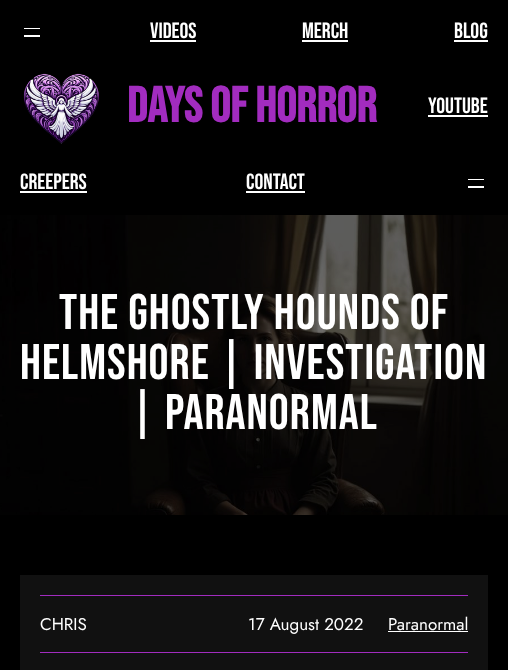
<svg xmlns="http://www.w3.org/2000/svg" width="508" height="670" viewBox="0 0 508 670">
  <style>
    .t1 { font: 22px Bebas Neue; fill: #fff; }
    .t2 { font: bold 49.9px Bebas Neue; fill: #a22cbf; }
    .t3 { font: 49.9px Bebas Neue; letter-spacing: 1px; fill: #fff; }
    .t4 { font: 17px Jost; fill: #fff; }
  </style>
  <rect width="100%" height="100%" fill="#000"/>
  <rect x="24" y="28" width="16" height="1" fill="#fff"/>
  <rect x="24" y="35" width="16" height="2" fill="#fff"/>
  <text x="150" y="38" class="t1">VIDEOS</text>
  <rect x="150" y="40" width="46" height="2" fill="#fff"/>
  <text x="302" y="38" class="t1">MERCH</text>
  <rect x="302" y="40" width="46" height="2" fill="#fff"/>
  <text x="454" y="38" class="t1">BLOG</text>
  <rect x="454" y="40" width="34" height="2" fill="#fff"/>
  <image x="23" y="73" width="76" height="71" href="images/1.png"/>
  <text x="127" y="122" class="t2">Days of Horror</text>
  <text x="428" y="113" class="t1">YOUTUBE</text>
  <rect x="428" y="115" width="60" height="2" fill="#fff"/>
  <text x="20" y="189" class="t1">CREEPERS</text>
  <rect x="20" y="191" width="67" height="2" fill="#fff"/>
  <text x="246" y="189" class="t1">CONTACT</text>
  <rect x="246" y="191" width="59" height="2" fill="#fff"/>
  <rect x="468" y="179" width="16" height="1" fill="#fff"/>
  <rect x="468" y="186" width="16" height="2" fill="#fff"/>
  <image x="0" y="215" width="508" height="300" href="images/2.png"/>
  <text x="59" y="329" class="t3">The Ghostly Hounds of</text>
  <text x="20" y="379" class="t3">Helmshore | Investigation</text>
  <text x="130" y="429" class="t3">| Paranormal</text>
  <rect x="20" y="575" width="468" height="95" fill="#111"/>
  <rect x="40" y="595" width="428" height="1" fill="#a22cbf"/>
  <rect x="40" y="652" width="428" height="1" fill="#a22cbf"/>
  <text x="40" y="630" class="t4">CHRIS</text>
  <text x="248" y="630" class="t4">17 August 2022</text>
  <text x="388" y="630" class="t4">Paranormal</text>
  <rect x="388" y="631" width="80" height="1" fill="#fff"/>
</svg>
